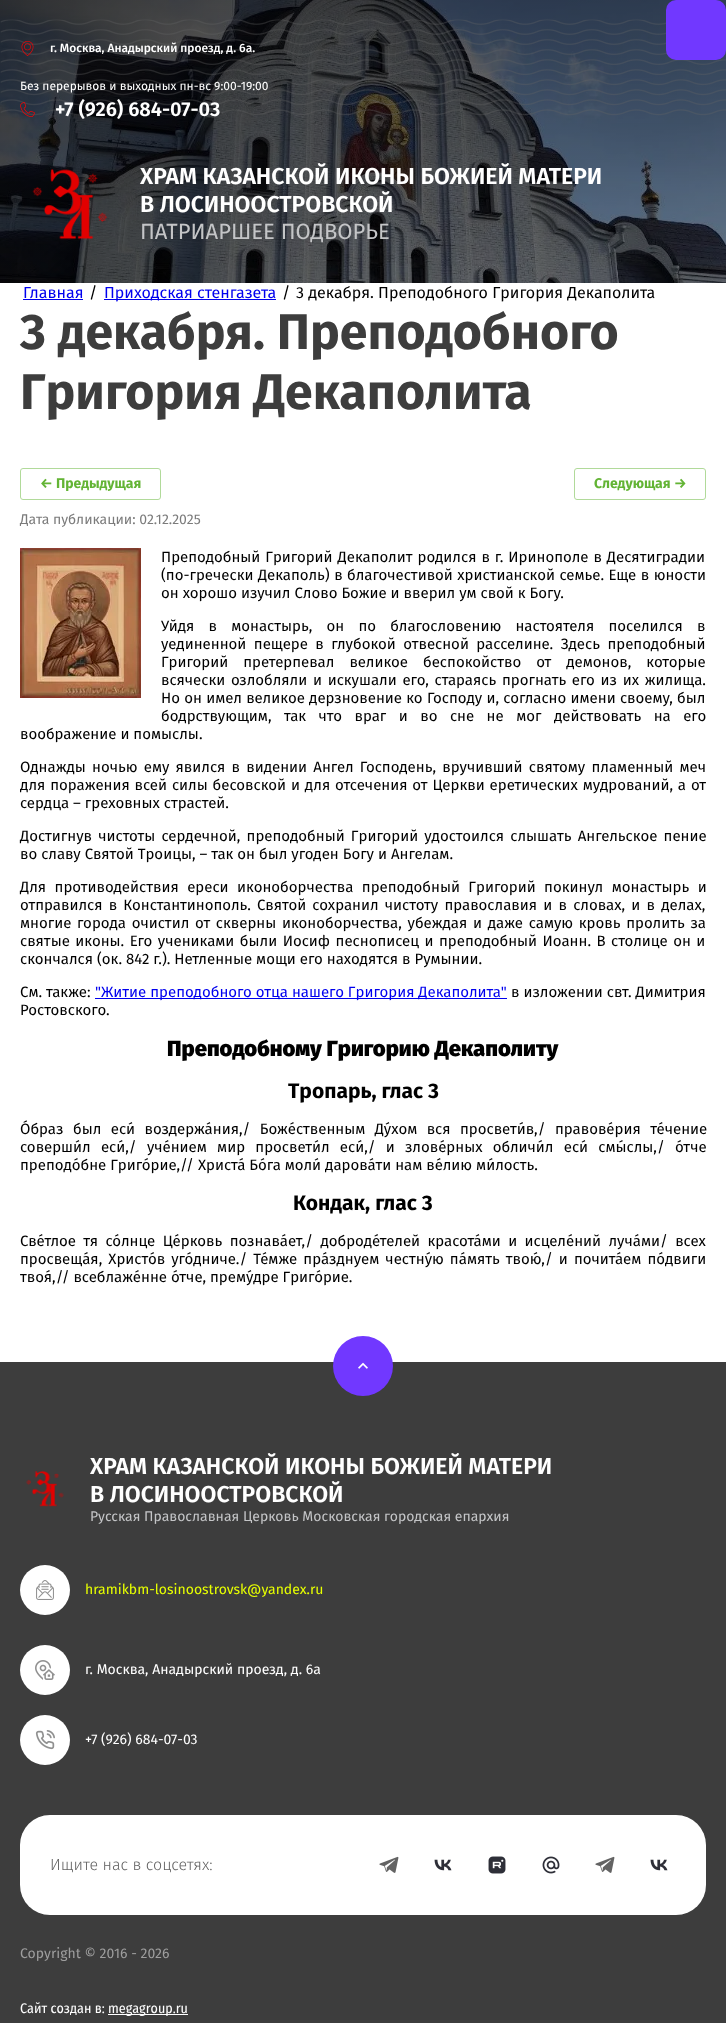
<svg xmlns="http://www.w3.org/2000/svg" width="726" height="2023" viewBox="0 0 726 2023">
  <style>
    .t1 { font: 500 12px Fira Sans; fill: #fff; }
    .t2 { font: 12px Fira Sans; fill: #fff; }
    .t3 { font: 600 20px Fira Sans; fill: #fff; }
    .t4 { font: 600 23px Fira Sans; fill: #fff; }
    .t5 { font: 22px Fira Sans; fill: #c4c5c7; }
    .t6 { font: 16px Fira Sans; fill: #00e; }
    .t7 { font: 16px Fira Sans; fill: #000; }
    .t8 { font: bold 50px Fira Sans; fill: #3d3d3d; }
    .t9 { font: bold 14px Fira Sans; fill: #63b435; }
    .t10 { font: 14px Fira Sans; fill: #7b7b7b; }
    .t11 { font: 15px Fira Sans; fill: #000; }
    .t12 { font: 15px Fira Sans; fill: #00e; }
    .t13 { font: 900 22px Fira Sans; fill: #000; }
    .t14 { font: bold 21px Fira Sans; fill: #000; }
    .t15 { font: 14px Fira Sans; fill: #c4c5c7; }
    .t16 { font: 14px Fira Sans; fill: #e7ff00; }
    .t17 { font: 14px Fira Sans; fill: #fff; }
    .t18 { font: 300 16px Fira Sans; fill: #636363; }
    .t19 { font: 14px Fira Sans; fill: #9e9e9e; }
    .t20 { font: 14px Fira Sans Condensed; fill: #fff; }
  </style>
  <rect width="100%" height="100%" fill="#fff"/>
  <image x="0" y="0" width="726" height="283" href="images/1.png"/>
  <rect x="666" y="0" width="60" height="60" rx="10" fill="#7138ff"/>
  <image x="21" y="41" width="13" height="15" href="images/2.png"/>
  <text x="50" y="52" class="t1">г. Москва, Анадырский проезд, д. 6а.</text>
  <text x="20" y="90" class="t2">Без перерывов и выходных пн-вс 9:00-19:00</text>
  <image x="20" y="102" width="15" height="15" href="images/3.png"/>
  <text x="55" y="116" class="t3">+7 (926) 684-07-03</text>
  <image x="32" y="169" width="76" height="71" href="images/4.png"/>
  <text x="140" y="184" class="t4">ХРАМ КАЗАНСКОЙ ИКОНЫ БОЖИЕЙ МАТЕРИ</text>
  <text x="140" y="212" class="t4">В ЛОСИНООСТРОВСКОЙ</text>
  <text x="140" y="239" class="t5">ПАТРИАРШЕЕ ПОДВОРЬЕ</text>
  <text x="23" y="298" class="t6">Главная</text>
  <rect x="23" y="299" width="60" height="1" fill="#00e"/>
  <text x="89" y="298" class="t7">/</text>
  <rect x="104" y="299" width="172" height="1" fill="#00e"/>
  <text x="104" y="298" class="t6">Приходская стенгазета</text>
  <text x="282" y="298" class="t7">/</text>
  <text x="296" y="298" class="t7">3 декабря. Преподобного Григория Декаполита</text>
  <text x="20" y="349" class="t8">3 декабря. Преподобного</text>
  <text x="20" y="409" class="t8">Григория Декаполита</text>
  <rect x="20.5" y="468.5" width="140" height="31" rx="2.5" fill="none" stroke="#b1da9a"/>
  <text x="40" y="488" class="t9">← Предыдущая</text>
  <rect x="574.5" y="468.5" width="131" height="31" rx="2.5" fill="none" stroke="#b1da9a"/>
  <text x="594" y="488" class="t9">Следующая →</text>
  <text x="20" y="524" class="t10">Дата публикации: 02.12.2025</text>
  <image x="20" y="548" width="121" height="150" href="images/5.png"/>
  <text x="161" y="562" word-spacing="1" class="t11">Преподобный Григорий Декаполит родился в г. Иринополе в Десятиградии</text>
  <text x="161" y="580" word-spacing="0.5" class="t11">(по-гречески Декаполь) в благочестивой христианской семье. Еще в юности</text>
  <text x="161" y="598" class="t11">он хорошо изучил Слово Божие и вверил ум свой к Богу.</text>
  <text x="161" y="631" word-spacing="10.25" class="t11">Уйдя в монастырь, он по благословению настоятеля поселился в</text>
  <text x="161" y="649" word-spacing="3.5" class="t11">уединенной пещере в глубокой отвесной расселине. Здесь преподобный</text>
  <text x="161" y="667" word-spacing="11" class="t11">Григорий претерпевал великое беспокойство от демонов, которые</text>
  <text x="161" y="685" word-spacing="1.75" class="t11">всячески озлобляли и искушали его, стараясь прогнать его из их жилища.</text>
  <text x="161" y="703" word-spacing="0.3" class="t11">Но он имел великое дерзновение ко Господу и, согласно имени своему, был</text>
  <text x="161" y="721" word-spacing="8.5" class="t11">бодрствующим, так что враг и во сне не мог действовать на его</text>
  <text x="20" y="739" class="t11">воображение и помыслы.</text>
  <text x="20" y="772" word-spacing="2.25" class="t11">Однажды ночью ему явился в видении Ангел Господень, вручивший святому пламенный меч</text>
  <text x="20" y="790" word-spacing="0.9" class="t11">для поражения всей силы бесовской и для отсечения от Церкви еретических мудрований, а от</text>
  <text x="20" y="808" class="t11">сердца – греховных страстей.</text>
  <text x="20" y="841" word-spacing="2.25" class="t11">Достигнув чистоты сердечной, преподобный Григорий удостоился слышать Ангельское пение</text>
  <text x="20" y="859" class="t11">во славу Святой Троицы, – так он был угоден Богу и Ангелам.</text>
  <text x="20" y="892" word-spacing="4.5" class="t11">Для противодействия ереси иконоборчества преподобный Григорий покинул монастырь и</text>
  <text x="20" y="910" word-spacing="2.25" class="t11">отправился в Константинополь. Святой сохранил чистоту православия и в словах, и в делах,</text>
  <text x="20" y="928" word-spacing="1.75" class="t11">многие города очистил от скверны иконоборчества, убеждая и даже самую кровь пролить за</text>
  <text x="20" y="946" word-spacing="1.5" class="t11">святые иконы. Его учениками были Иосиф песнописец и преподобный Иоанн. В столице он и</text>
  <text x="20" y="964" class="t11">скончался (ок. 842 г.). Нетленные мощи его находятся в Румынии.</text>
  <text x="20" y="997" class="t11">См. также:</text>
  <rect x="95" y="998" width="412" height="1" fill="#00e"/>
  <text x="95" y="997" class="t12">"Житие преподобного отца нашего Григория Декаполита"</text>
  <text x="511" y="997" class="t11">в изложении свт. Димитрия</text>
  <text x="20" y="1015" class="t11">Ростовского.</text>
  <text x="167" y="1056" class="t13">Преподобному Григорию Декаполиту</text>
  <text x="288" y="1098" class="t14">Тропарь, глас 3</text>
  <text x="20" y="1134" word-spacing="5.5" class="t11">О́браз был еси́ воздержа́ния,/ Боже́ственным Ду́хом вся просвети́в,/ правове́рия те́чение</text>
  <text x="20" y="1152" word-spacing="6.25" class="t11">соверши́л еси́,/ уче́нием мир просвети́л еси́,/ и злове́рных обличи́л еси́ смы́слы,/ о́тче</text>
  <text x="20" y="1170" class="t11">преподо́бне Григо́рие,// Христа́ Бо́га моли́ дарова́ти нам ве́лию ми́лость.</text>
  <text x="293" y="1210" class="t14">Кондак, глас 3</text>
  <text x="20" y="1246" word-spacing="3.4" class="t11">Све́тлое тя со́лнце Це́рковь познава́ет,/ доброде́телей красота́ми и исцеле́ний луча́ми/ всех</text>
  <text x="20" y="1264" word-spacing="2.1" class="t11">просвеща́я, Христо́в уго́дниче./ Те́мже пра́зднуем честну́ю па́мять твою́,/ и почита́ем по́двиги</text>
  <text x="20" y="1282" class="t11">твоя́,// всеблаже́нне о́тче, прему́дре Григо́рие.</text>
  <rect x="0" y="1362" width="726" height="661" fill="#3d3d3d"/>
  <circle cx="363" cy="1366" r="30" fill="#7138ff"/>
  <image x="358" y="1362" width="10" height="7" href="images/6.png"/>
  <image x="26" y="1470" width="38" height="37" href="images/7.png"/>
  <text x="90" y="1474" class="t4">ХРАМ КАЗАНСКОЙ ИКОНЫ БОЖИЕЙ МАТЕРИ</text>
  <text x="90" y="1502" class="t4">В ЛОСИНООСТРОВСКОЙ</text>
  <text x="90" y="1521" class="t15">Русская Православная Церковь Московская городская епархия</text>
  <circle cx="45" cy="1590" r="25" fill="#fff"/>
  <image x="36" y="1580" width="18" height="20" href="images/8.png"/>
  <text x="85" y="1594" class="t16">hramikbm-losinoostrovsk@yandex.ru</text>
  <circle cx="45" cy="1670" r="25" fill="#fff"/>
  <image x="35" y="1660" width="20" height="20" href="images/9.png"/>
  <text x="85" y="1674" class="t17">г. Москва, Анадырский проезд, д. 6а</text>
  <circle cx="45" cy="1740" r="25" fill="#fff"/>
  <image x="35" y="1730" width="20" height="20" href="images/10.png"/>
  <text x="85" y="1744" class="t17">+7 (926) 684-07-03</text>
  <rect x="20" y="1815" width="686" height="100" rx="30" fill="#fff"/>
  <text x="50" y="1870" class="t18">Ищите нас в соцсетях:</text>
  <image x="379" y="1856" width="20" height="17" href="images/11.png"/>
  <image x="434" y="1859" width="18" height="12" href="images/12.png"/>
  <image x="488" y="1856" width="18" height="18" href="images/13.png"/>
  <image x="542" y="1856" width="18" height="18" href="images/14.png"/>
  <image x="595" y="1856" width="20" height="17" href="images/11.png"/>
  <image x="650" y="1859" width="18" height="12" href="images/12.png"/>
  <text x="20" y="1958" class="t19">Copyright © 2016 - 2026</text>
  <text x="20" y="2013" class="t20">Сайт создан в:</text>
  <rect x="108" y="2014" width="80" height="1" fill="#fff"/>
  <text x="108" y="2013" class="t20">megagroup.ru</text>
</svg>
